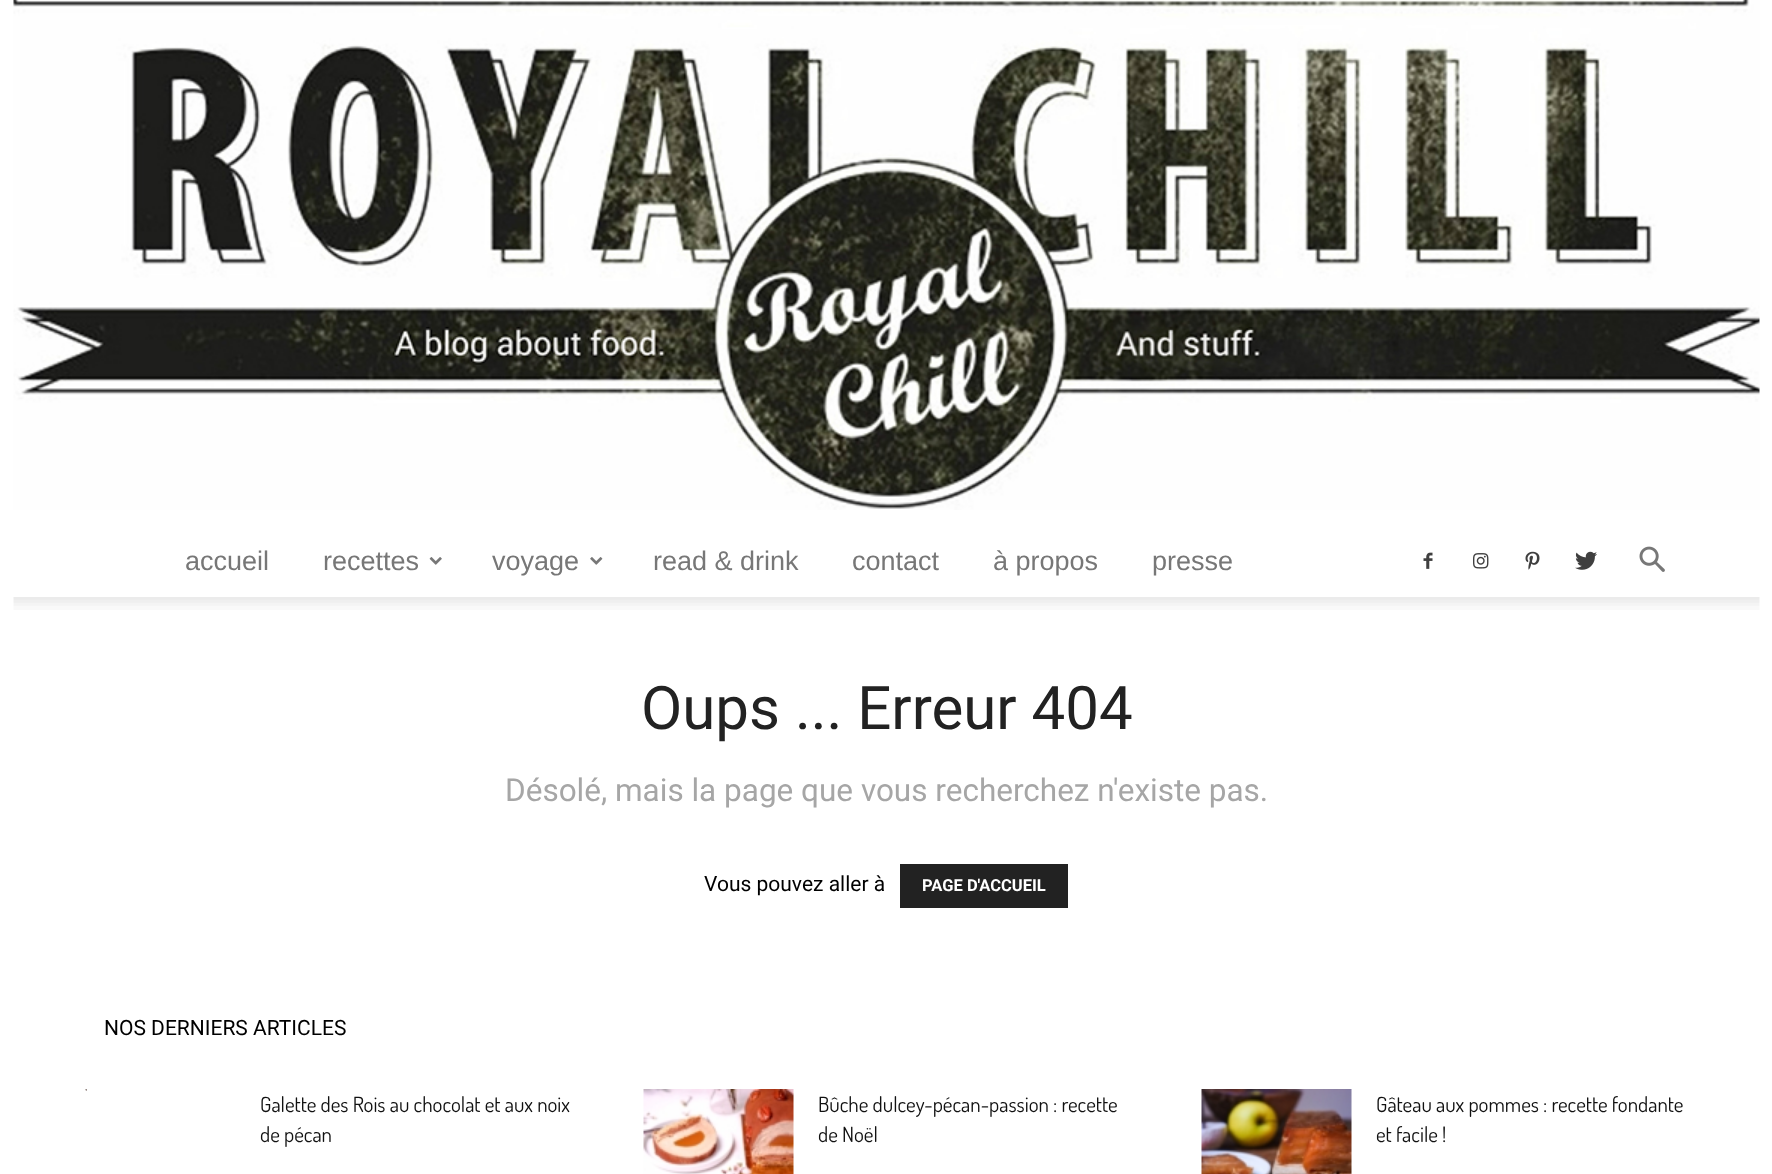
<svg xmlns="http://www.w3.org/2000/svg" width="1772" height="1174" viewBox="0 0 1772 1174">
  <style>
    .t1 { font: 27px Liberation Sans; fill: #777; }
    .t2 { font: 60px Roboto; fill: #222; }
    .t3 { font: 31.5px Roboto; fill: #a6a6a6; }
    .t4 { font: 21px Roboto; fill: #000; }
    .t5 { font: bold 16.5px Roboto; fill: #fff; }
    .t6 { font: 21px Dosis; fill: #111; }
  </style>
  <rect width="100%" height="100%" fill="#fff"/>
  <image x="13" y="0" width="1747" height="510" href="images/1.png"/>
  <text x="185" y="570" class="t1">accueil</text>
  <text x="323" y="570" class="t1">recettes</text>
  <image x="429" y="557" width="13" height="8" href="images/2.png"/>
  <text x="492" y="570" class="t1">voyage</text>
  <image x="590" y="557" width="13" height="8" href="images/3.png"/>
  <text x="653" y="570" class="t1">read &amp; drink</text>
  <text x="852" y="570" class="t1">contact</text>
  <text x="993" y="570" class="t1">à propos</text>
  <text x="1152" y="570" class="t1">presse</text>
  <image x="1423" y="552" width="10" height="17" href="images/4.png"/>
  <image x="1473" y="553" width="16" height="16" href="images/5.png"/>
  <image x="1525" y="551" width="15" height="19" href="images/6.png"/>
  <image x="1575" y="551" width="22" height="19" href="images/7.png"/>
  <image x="1639" y="546" width="26" height="26" href="images/8.png"/>
  <image x="13" y="597" width="1747" height="13" href="images/9.png"/>
  <text x="641" y="729" class="t2">Oups ... Erreur 404</text>
  <text x="505" y="801" class="t3">Désolé, mais la page que vous recherchez n'existe pas.</text>
  <text x="704" y="891" class="t4">Vous pouvez aller à</text>
  <rect x="900" y="864" width="168" height="44" fill="#222"/>
  <text x="922" y="891" class="t5">PAGE D'ACCUEIL</text>
  <text x="104" y="1035" class="t4">NOS DERNIERS ARTICLES</text>
  <image x="85" y="1089" width="2" height="2" href="images/10.png"/>
  <text x="260" y="1112" class="t6">Galette des Rois au chocolat et aux noix</text>
  <text x="260" y="1142" class="t6">de pécan</text>
  <image x="643" y="1089" width="151" height="85" href="images/11.png"/>
  <text x="818" y="1112" class="t6">Bûche dulcey-pécan-passion : recette</text>
  <text x="818" y="1142" class="t6">de Noël</text>
  <image x="1201" y="1089" width="151" height="85" href="images/12.png"/>
  <text x="1376" y="1112" class="t6">Gâteau aux pommes : recette fondante</text>
  <text x="1376" y="1142" class="t6">et facile !</text>
</svg>
